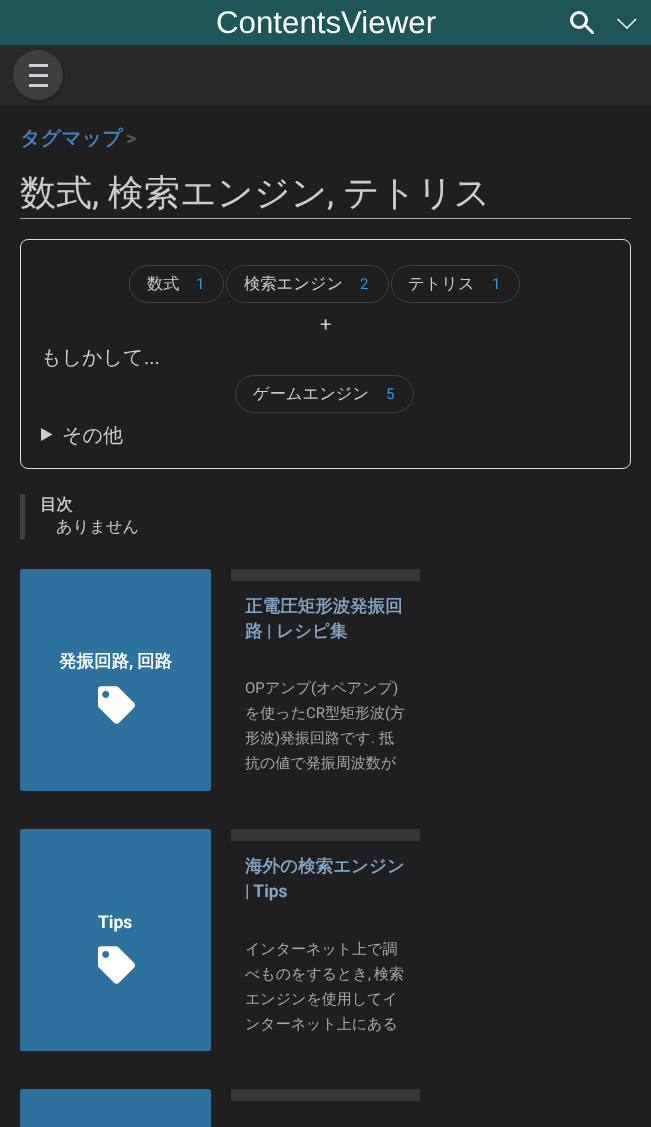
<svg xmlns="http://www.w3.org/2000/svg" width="651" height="1127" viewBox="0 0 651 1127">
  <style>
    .t1 { font: 31.25px Liberation Sans; fill: #fff; }
    .t2 { font: bold 20px WenQuanYi Zen Hei; fill: #4183c4; }
    .t3 { font: bold 20px Roboto; fill: #555; }
    .t4 { font: 500 36px WenQuanYi Zen Hei; fill: #ccc; }
    .t5 { font: 36px Roboto; fill: #ccc; }
    .t6 { font: 500 16.25px WenQuanYi Zen Hei; fill: #ccc; }
    .t7 { font: 15px Roboto; fill: #3498db; }
    .t8 { font: 20px Roboto; fill: #ccc; }
    .t9 { font: 500 20px WenQuanYi Zen Hei; fill: #ccc; }
    .t10 { font: bold 16.25px WenQuanYi Zen Hei; fill: #ccc; }
    .t11 { font: bold 17.5px WenQuanYi Zen Hei; fill: #fff; }
    .t12 { font: bold 17.5px Roboto; fill: #fff; }
    .t13 { font: bold 17.5px WenQuanYi Zen Hei; fill: #80a4c8; }
    .t14 { font: bold 17.5px Roboto; fill: #80a4c8; }
    .t15 { font: 15px Roboto; fill: #a7a7a7; }
    .t16 { font: 500 15px WenQuanYi Zen Hei; fill: #a7a7a7; }
  </style>
  <rect width="100%" height="100%" fill="#282828"/>
  <rect x="0" y="0" width="651" height="45" fill="#1d5558"/>
  <text x="216" y="33" class="t1">ContentsViewer</text>
  <circle cx="579" cy="20" r="7.5" fill="none" stroke="#fff" stroke-width="3"/>
  <path d="M586.5 24.5L593.5 31.5C594 32 594 33 593.5 33.5C593 34 592 34 591.5 33.5L584.5 26.5ZM636.5 19.5L627 29L626 28L635.5 18.5Z" fill="#fff"/>
  <path d="M628 28L627 29L617 19.5L618 18.5Z" fill="#fff"/>
  <path d="M20 92C28 105 47 107 58 96C67 86 67 70 58 61C75 85 41 114 20 92Z" fill="#222"/>
  <circle cx="38" cy="75" r="25" fill="#3e3e3e"/>
  <rect x="29" y="64" width="19" height="3" fill="#cdd2d8"/>
  <rect x="29" y="74" width="19" height="3" fill="#cdd2d8"/>
  <rect x="29" y="84" width="19" height="3" fill="#cdd2d8"/>
  <rect x="0" y="106" width="651" height="1021" fill="#1f1f1f"/>
  <text x="20" y="145" class="t2">タグマップ</text>
  <text x="126" y="145" class="t3">&gt;</text>
  <rect x="20" y="218" width="611" height="1" fill="#a2a9b1"/>
  <text x="20" y="205" class="t4">数式</text>
  <text x="92" y="205" class="t5">,</text>
  <text x="108" y="205" class="t4">検索エンジン</text>
  <text x="327" y="205" class="t5">,</text>
  <text x="343" y="205" class="t4">テトリス</text>
  <rect x="20.5" y="239.5" width="610" height="229" rx="7.5" fill="none" stroke="#dadce0"/>
  <rect x="129.5" y="265.5" width="94" height="37" rx="18.5" fill="none" stroke="#404041"/>
  <text x="147" y="289" class="t6">数式</text>
  <text x="196" y="289" class="t7">1</text>
  <rect x="226.5" y="265.5" width="162" height="37" rx="18.5" fill="none" stroke="#404041"/>
  <text x="244" y="289" class="t6">検索エンジン</text>
  <text x="360" y="289" class="t7">2</text>
  <rect x="391.5" y="265.5" width="128" height="37" rx="18.5" fill="none" stroke="#404041"/>
  <text x="408" y="289" class="t6">テトリス</text>
  <text x="492" y="289" class="t7">1</text>
  <text x="320" y="331" class="t8">+</text>
  <text x="41" y="364" class="t9">もしかして</text>
  <text x="144" y="364" class="t8">...</text>
  <rect x="235.5" y="375.5" width="178" height="37" rx="18.5" fill="none" stroke="#404041"/>
  <text x="253" y="399" class="t6">ゲームエンジン</text>
  <text x="386" y="399" class="t7">5</text>
  <path d="M41 428L52.5 434.5L41 441Z" fill="#ccc"/>
  <text x="62" y="442" class="t9">その他</text>
  <rect x="20" y="494" width="5" height="45" fill="#3e4042"/>
  <text x="40" y="510" class="t10">目次</text>
  <text x="56" y="532" class="t6">ありません</text>
  <rect x="20" y="569" width="191" height="222" rx="2.5" fill="#2d719f"/>
  <text x="59" y="667" class="t11">発振回路</text>
  <text x="129" y="667" class="t12">,</text>
  <text x="137" y="667" class="t11">回路</text>
  <image x="98" y="686" width="37" height="38" href="images/1.png"/>
  <rect x="231" y="569" width="189" height="12" fill="#373737"/>
  <text x="245" y="612" class="t13">正電圧矩形波発振回</text>
  <text x="245" y="637" class="t13">路</text>
  <text x="267" y="637" class="t14">|</text>
  <text x="276" y="637" class="t13">レシピ集</text>
  <text x="245" y="693" class="t15">OP</text>
  <text x="265" y="693" class="t16">アンプ</text>
  <text x="311" y="693" class="t15">(</text>
  <text x="316" y="693" class="t16">オペアンプ</text>
  <text x="393" y="693" class="t15">)</text>
  <text x="245" y="718" class="t16">を使った</text>
  <text x="306" y="718" class="t15">CR</text>
  <text x="325" y="718" class="t16">型矩形波</text>
  <text x="385" y="718" class="t15">(</text>
  <text x="390" y="718" class="t16">方</text>
  <text x="245" y="743" class="t16">形波</text>
  <text x="275" y="743" class="t15">)</text>
  <text x="280" y="743" class="t16">発振回路です</text>
  <text x="371" y="743" class="t15">.</text>
  <text x="379" y="743" class="t16">抵</text>
  <text x="245" y="768" class="t16">抗の値で発振周波数が</text>
  <rect x="20" y="829" width="191" height="222" rx="2.5" fill="#2d719f"/>
  <text x="98" y="928" class="t12">Tips</text>
  <image x="98" y="946" width="37" height="38" href="images/1.png"/>
  <rect x="231" y="829" width="189" height="12" fill="#373737"/>
  <text x="245" y="872" class="t13">海外の検索エンジン</text>
  <text x="245" y="897" class="t14">| Tips</text>
  <text x="245" y="954" class="t16">インターネット上で調</text>
  <text x="245" y="979" class="t16">べものをするとき</text>
  <text x="368" y="979" class="t15">,</text>
  <text x="374" y="979" class="t16">検索</text>
  <text x="245" y="1004" class="t16">エンジンを使用してイ</text>
  <text x="245" y="1029" class="t16">ンターネット上にある</text>
  <rect x="20" y="1089" width="191" height="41" rx="2.5" fill="#2d719f"/>
  <rect x="231" y="1089" width="189" height="12" fill="#373737"/>
</svg>
